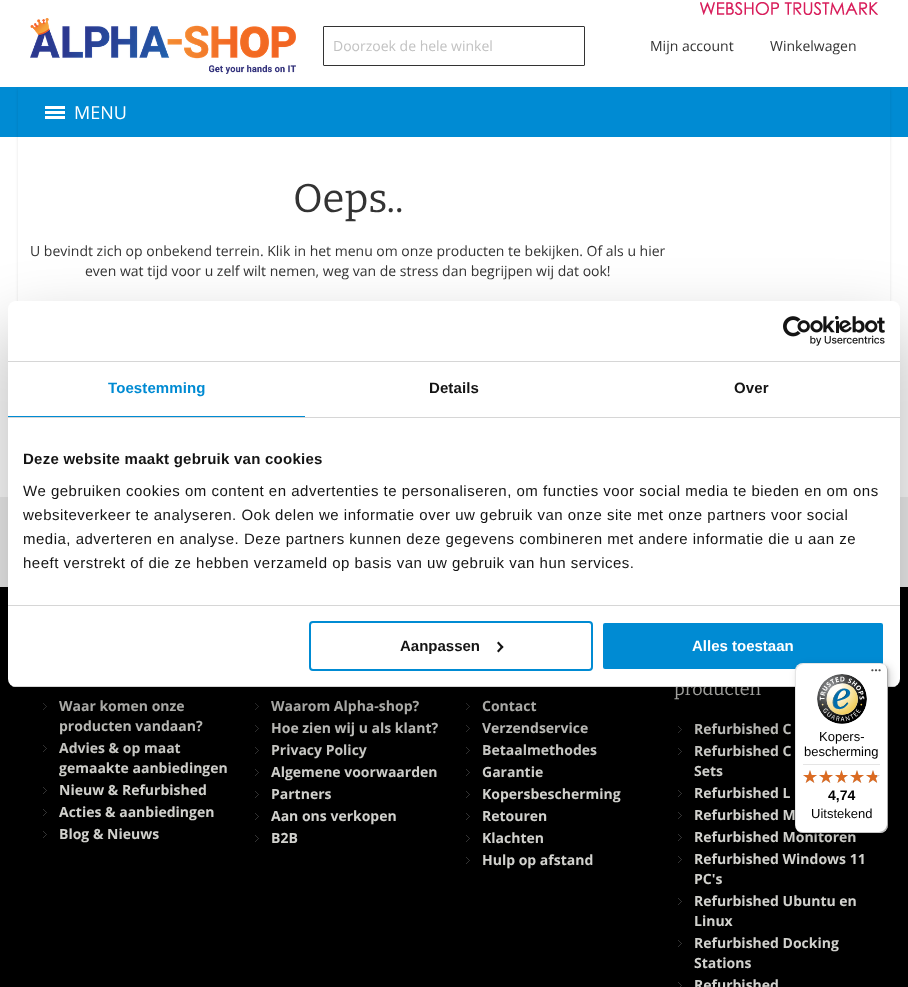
<svg xmlns="http://www.w3.org/2000/svg" width="908" height="987" viewBox="0 0 908 987">
  <style>
    .t1 { font: 14px Open Sans; fill: #c2c2c2; }
    .t2 { font: 14px Open Sans; fill: #333; }
    .t3 { font: 18px Open Sans; fill: #fff; }
    .t4 { font: 100 40px Bitter; fill: #333; }
    .t5 { font: bold 14px Open Sans; fill: #d1d1cd; }
    .t6 { font: 100 18px Bitter; fill: #d1d1cd; }
    .t7 { font: bold 15px Liberation Sans; letter-spacing: 0.1px; fill: #008bd3; }
    .t8 { font: bold 15px Liberation Sans; letter-spacing: 0.1px; fill: #141414; }
    .t9 { font: bold 15px Liberation Sans; letter-spacing: 0.25px; fill: #141414; }
    .t10 { font: 15px Liberation Sans; letter-spacing: 0.5px; fill: #141414; }
    .t11 { font: bold 15px Liberation Sans; fill: #141414; }
    .t12 { font: bold 15px Liberation Sans; fill: #fff; }
    .t13 { font: 13px Liberation Sans; fill: #000; }
    .t14 { font: bold 14px Liberation Sans; fill: #000; }
  </style>
  <defs>
    <clipPath id="clip1"><path d="M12 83H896V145H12ZM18 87H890V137H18Z" clip-rule="evenodd"/></clipPath>
    <clipPath id="clip2"><rect x="8" y="301" width="892" height="386" rx="8"/></clipPath>
  </defs>
  <rect width="100%" height="100%" fill="#fff"/>
  <image x="700" y="2" width="178" height="13" href="images/1.png"/>
  <image x="30" y="18" width="266" height="56" href="images/2.png"/>
  <rect x="323.5" y="26.5" width="261" height="39" rx="0.5" fill="none" stroke="#333"/>
  <text x="333" y="51" class="t1">Doorzoek de hele winkel</text>
  <text x="650" y="51" class="t2">Mijn account</text>
  <text x="770" y="51" class="t2">Winkelwagen</text>
  <rect x="0" y="87" width="908" height="50" fill="#008bd3"/>
  <g clip-path="url(#clip1)">
    <rect x="18" y="89" width="872" height="50" fill="#0000001a" filter="blur(1.5px)"/>
  </g>
  <rect x="45" y="106" width="20" height="3" fill="#fff"/>
  <rect x="45" y="111" width="20" height="3" fill="#fff"/>
  <rect x="45" y="116" width="20" height="3" fill="#fff"/>
  <text x="74" y="119" class="t3">MENU</text>
  <rect x="18" y="139" width="872" height="360" fill="#0000001a" filter="blur(1.5px)"/>
  <rect x="18" y="137" width="872" height="164" fill="#fff"/>
  <text x="293" y="212" class="t4">Oeps..</text>
  <text x="30" y="256" class="t2">U bevindt zich op onbekend terrein. Klik in het menu om onze producten te bekijken. Of als u hier</text>
  <text x="85" y="276" class="t2">even wat tijd voor u zelf wilt nemen, weg van de stress dan begrijpen wij dat ook!</text>
  <rect x="0" y="497" width="908" height="90" fill="#efefef"/>
  <rect x="0" y="587" width="908" height="400" fill="#000"/>
  <image x="43" y="703" width="4" height="7" href="images/3.png"/>
  <text x="59" y="711" class="t5">Waar komen onze</text>
  <text x="59" y="731" class="t5">producten vandaan?</text>
  <image x="43" y="745" width="4" height="7" href="images/3.png"/>
  <text x="59" y="753" class="t5">Advies &amp; op maat</text>
  <text x="59" y="773" class="t5">gemaakte aanbiedingen</text>
  <image x="43" y="787" width="4" height="7" href="images/3.png"/>
  <text x="59" y="795" class="t5">Nieuw &amp; Refurbished</text>
  <image x="43" y="809" width="4" height="7" href="images/3.png"/>
  <text x="59" y="817" class="t5">Acties &amp; aanbiedingen</text>
  <image x="43" y="831" width="4" height="7" href="images/3.png"/>
  <text x="59" y="839" class="t5">Blog &amp; Nieuws</text>
  <image x="255" y="703" width="4" height="7" href="images/3.png"/>
  <text x="271" y="711" class="t5">Waarom Alpha-shop?</text>
  <image x="255" y="725" width="4" height="7" href="images/3.png"/>
  <text x="271" y="733" class="t5">Hoe zien wij u als klant?</text>
  <image x="255" y="747" width="4" height="7" href="images/3.png"/>
  <text x="271" y="755" class="t5">Privacy Policy</text>
  <image x="255" y="769" width="4" height="7" href="images/3.png"/>
  <text x="271" y="777" class="t5">Algemene voorwaarden</text>
  <image x="255" y="791" width="4" height="7" href="images/3.png"/>
  <text x="271" y="799" class="t5">Partners</text>
  <image x="255" y="813" width="4" height="7" href="images/3.png"/>
  <text x="271" y="821" class="t5">Aan ons verkopen</text>
  <image x="255" y="835" width="4" height="7" href="images/3.png"/>
  <text x="271" y="843" class="t5">B2B</text>
  <image x="466" y="703" width="4" height="7" href="images/3.png"/>
  <text x="482" y="711" class="t5">Contact</text>
  <image x="466" y="725" width="4" height="7" href="images/3.png"/>
  <text x="482" y="733" class="t5">Verzendservice</text>
  <image x="466" y="747" width="4" height="7" href="images/3.png"/>
  <text x="482" y="755" class="t5">Betaalmethodes</text>
  <image x="466" y="769" width="4" height="7" href="images/3.png"/>
  <text x="482" y="777" class="t5">Garantie</text>
  <image x="466" y="791" width="4" height="7" href="images/3.png"/>
  <text x="482" y="799" class="t5">Kopersbescherming</text>
  <image x="466" y="813" width="4" height="7" href="images/3.png"/>
  <text x="482" y="821" class="t5">Retouren</text>
  <image x="466" y="835" width="4" height="7" href="images/3.png"/>
  <text x="482" y="843" class="t5">Klachten</text>
  <image x="466" y="857" width="4" height="7" href="images/3.png"/>
  <text x="482" y="865" class="t5">Hulp op afstand</text>
  <text x="674" y="695" class="t6">producten</text>
  <image x="678" y="726" width="4" height="7" href="images/3.png"/>
  <text x="694" y="734" class="t5">Refurbished C</text>
  <image x="678" y="748" width="4" height="7" href="images/3.png"/>
  <text x="694" y="756" class="t5">Refurbished C</text>
  <text x="694" y="776" class="t5">Sets</text>
  <image x="678" y="790" width="4" height="7" href="images/3.png"/>
  <text x="694" y="798" class="t5">Refurbished L</text>
  <image x="678" y="812" width="4" height="7" href="images/3.png"/>
  <text x="694" y="820" class="t5">Refurbished M</text>
  <image x="678" y="834" width="4" height="7" href="images/3.png"/>
  <text x="694" y="842" class="t5">Refurbished Monitoren</text>
  <image x="678" y="856" width="4" height="7" href="images/3.png"/>
  <text x="694" y="864" class="t5">Refurbished Windows 11</text>
  <text x="694" y="884" class="t5">PC's</text>
  <image x="678" y="898" width="4" height="7" href="images/3.png"/>
  <text x="694" y="906" class="t5">Refurbished Ubuntu en</text>
  <text x="694" y="926" class="t5">Linux</text>
  <image x="678" y="940" width="4" height="7" href="images/3.png"/>
  <text x="694" y="948" class="t5">Refurbished Docking</text>
  <text x="694" y="968" class="t5">Stations</text>
  <image x="678" y="982" width="4" height="5" href="images/4.png"/>
  <text x="694" y="990" class="t5">Refurbished</text>
  <rect x="8" y="333" width="892" height="386" rx="8" fill="#0000004d" filter="blur(34px)"/>
  <rect x="8" y="301" width="892" height="386" rx="8" fill="#fff"/>
  <rect x="8" y="361" width="892" height="1" fill="#d6d6d6"/>
  <image x="783" y="316" width="102" height="30" href="images/5.png"/>
  <rect x="8" y="417" width="892" height="1" fill="#d6d6d6"/>
  <rect x="8" y="416" width="297" height="1" fill="#008bd3"/>
  <text x="108" y="393" class="t7">Toestemming</text>
  <text x="429" y="393" class="t8">Details</text>
  <text x="734" y="393" class="t8">Over</text>
  <rect x="8" y="605" width="892" height="1" fill="#d6d6d6"/>
  <text x="23" y="464" class="t9">Deze website maakt gebruik van cookies</text>
  <text x="23" y="496" class="t10">We gebruiken cookies om content en advertenties te personaliseren, om functies voor social media te bieden en om ons</text>
  <text x="23" y="520" class="t10">websiteverkeer te analyseren. Ook delen we informatie over uw gebruik van onze site met onze partners voor social</text>
  <text x="23" y="544" class="t10">media, adverteren en analyse. Deze partners kunnen deze gegevens combineren met andere informatie die u aan ze</text>
  <text x="23" y="568" class="t10">heeft verstrekt of die ze hebben verzameld op basis van uw gebruik van hun services.</text>
  <g clip-path="url(#clip2)">
    <rect x="8" y="686" width="892" height="1" fill="#d6d6d6"/>
  </g>
  <rect x="310" y="622" width="282" height="48" rx="3" fill="none" stroke="#008bd3" stroke-width="2"/>
  <text x="400" y="651" class="t11">Aanpassen</text>
  <path d="M498.5 641.5L503.5 647L502 648.5L497 643Z" fill="#141414"/>
  <path d="M502 645.5L503.5 647L498.5 652.5L497 651Z" fill="#141414"/>
  <rect x="602" y="622" width="282" height="48" rx="3" fill="#008bd3" stroke="#fff" stroke-width="2"/>
  <text x="692" y="651" class="t12">Alles toestaan</text>
  <rect x="798" y="666" width="93" height="170" rx="8" fill="#00000026" filter="blur(4px)"/>
  <rect x="796" y="664" width="93" height="170" rx="8" fill="#00000026" filter="blur(1px)"/>
  <rect x="795" y="663" width="93" height="170" rx="8" fill="#fff"/>
  <path d="M804 664H881C883 664 885 665 887 667C885 665 883 663 880 663H803C799 663 795 667 795 671V825C795 828 797 830 799 832C797 830 796 828 796 826V672C796 668 800 664 804 664Z" fill="#0000001a"/>
  <path d="M796 829C798 831 800 833 803 833H880C884 833 888 829 888 825V671C888 668 886 666 884 664C886 666 887 668 887 670V824C887 828 883 832 879 832H802C800 832 798 831 796 829Z" fill="#00000033"/>
  <path d="M797 830C798 832 801 833 803 833H880C884 833 888 829 888 825V671C888 669 887 666 885 665C886 666 887 668 887 670V824C887 829 884 832 879 832H802C800 832 798 831 797 830Z" fill="#32323233"/>
  <image x="871" y="669" width="10" height="3" href="images/6.png"/>
  <path d="M797 830C798 832 801 833 803 833H880C884 833 888 829 888 825V824C888 829 884 832 880 832H802C800 832 798 831 797 830Z" fill="#ffffff4d"/>
  <image x="817" y="674" width="50" height="50" href="images/7.png"/>
  <text x="819" y="741" class="t13">Kopers-</text>
  <text x="804" y="756" class="t13">bescherming</text>
  <rect x="803" y="764" width="77" height="1" fill="#e5e5e5"/>
  <image x="803" y="770" width="14" height="13" href="images/8.png"/>
  <image x="819" y="770" width="14" height="13" href="images/8.png"/>
  <image x="835" y="770" width="13" height="13" href="images/9.png"/>
  <image x="850" y="770" width="14" height="13" href="images/8.png"/>
  <image x="866" y="770" width="14" height="13" href="images/8.png"/>
  <image x="803" y="770" width="14" height="13" href="images/10.png"/>
  <image x="819" y="770" width="14" height="13" href="images/10.png"/>
  <image x="835" y="770" width="13" height="13" href="images/11.png"/>
  <image x="850" y="770" width="14" height="13" href="images/10.png"/>
  <image x="866" y="770" width="11" height="13" href="images/12.png"/>
  <text x="828" y="800" class="t14">4,74</text>
  <text x="811" y="818" class="t13">Uitstekend</text>
</svg>
